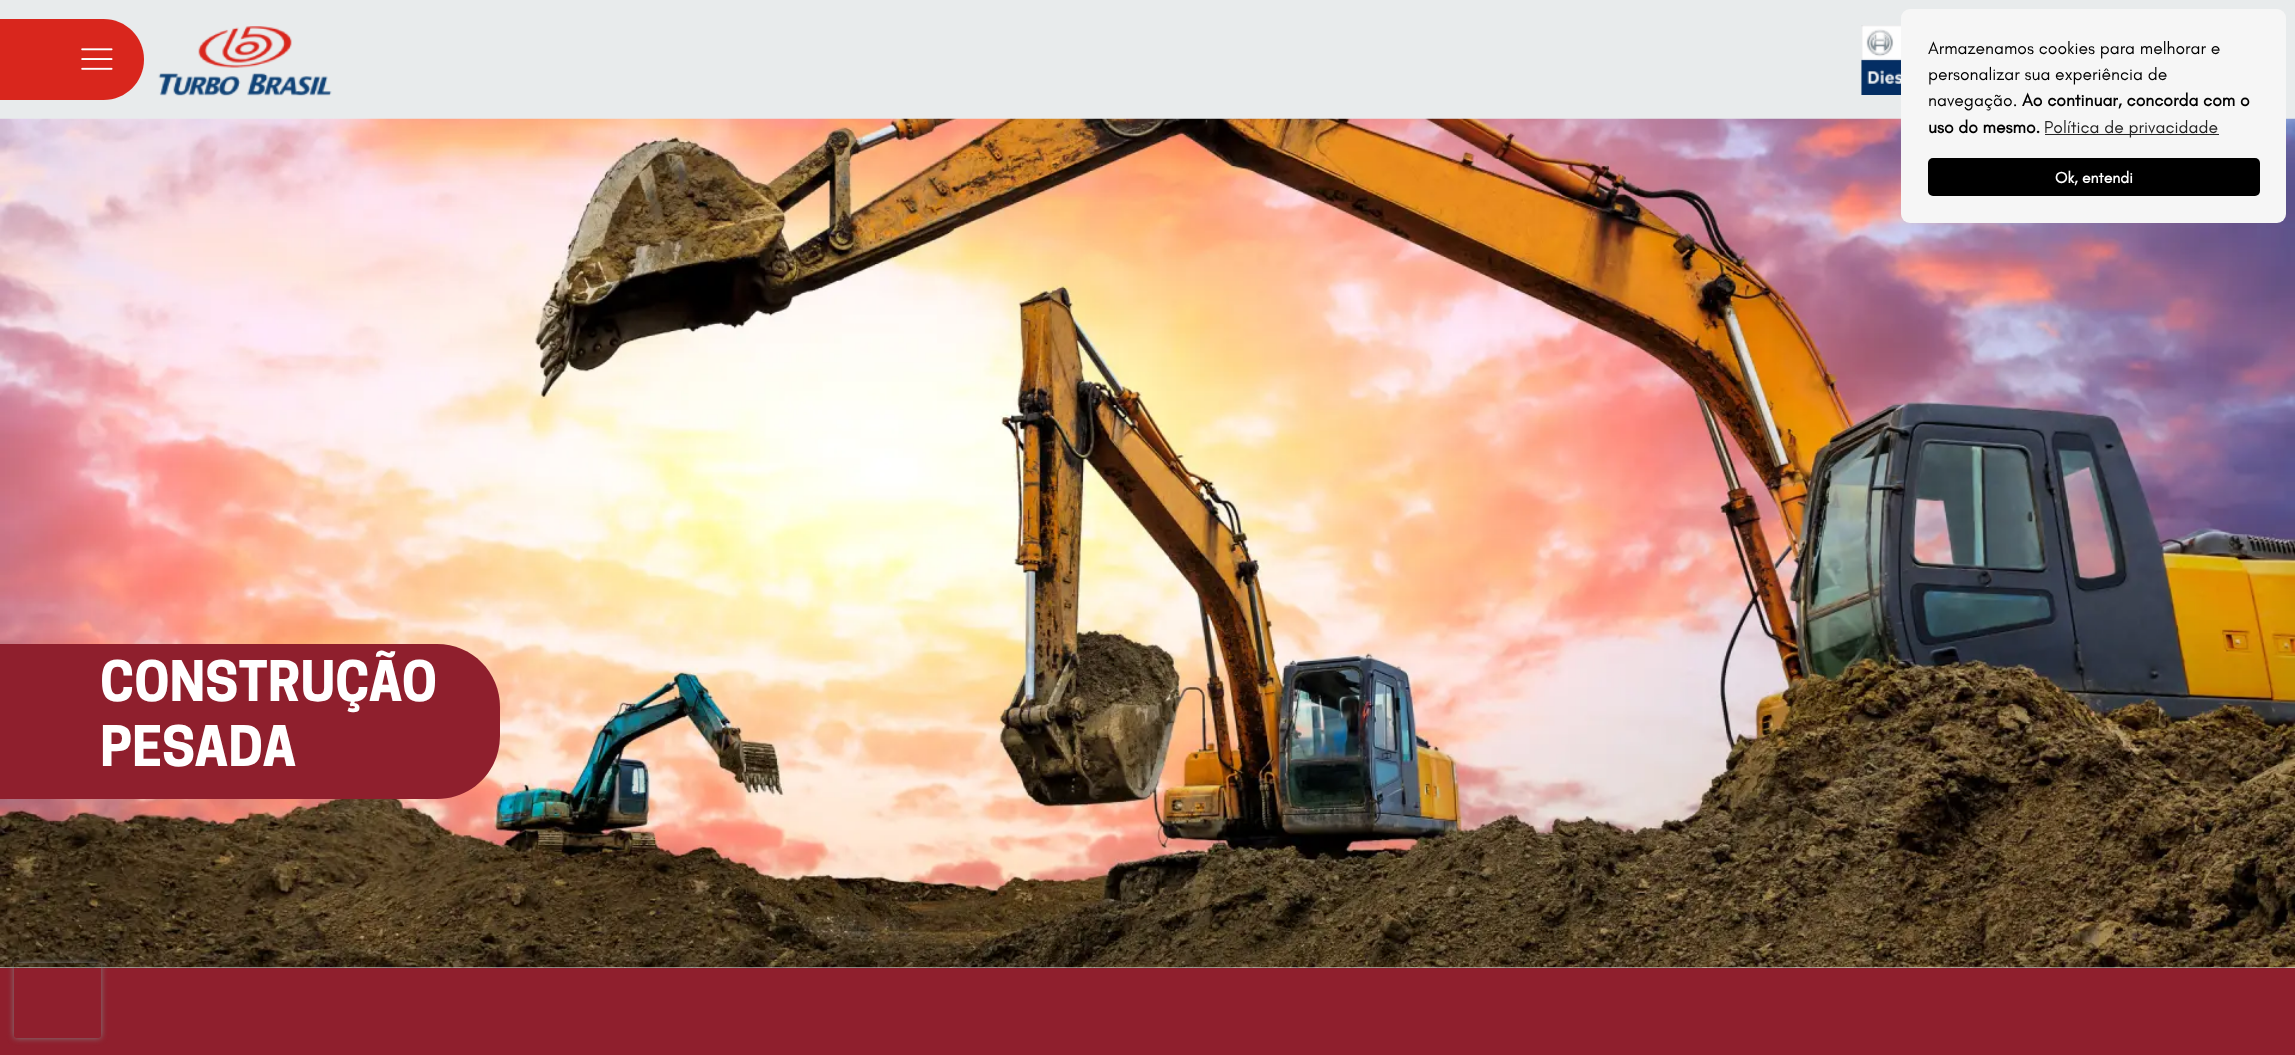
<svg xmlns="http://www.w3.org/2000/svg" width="2295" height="1055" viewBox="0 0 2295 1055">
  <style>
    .t1 { font: 17.5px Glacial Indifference; fill: #000; }
    .t2 { font: bold 17.5px Glacial Indifference; fill: #000; }
    .t3 { font: 17.5px Glacial Indifference; fill: #252525; }
    .t4 { font: bold 15.75px Glacial Indifference; fill: #fff; }
    .t5 { font: bold 52.5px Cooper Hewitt; fill: #fff; }
  </style>
  <defs>
    <clipPath id="clip1"><path d="M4 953H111V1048H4ZM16.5 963H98.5C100 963 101 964 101 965.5V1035.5C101 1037 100 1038 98.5 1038H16.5C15 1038 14 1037 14 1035.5V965.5C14 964 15 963 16.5 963Z" clip-rule="evenodd"/></clipPath>
  </defs>
  <rect width="100%" height="100%" fill="#e8ebec"/>
  <image x="0" y="118" width="2295" height="850" href="images/4.png"/>
  <rect x="1901" y="9" width="385" height="214" rx="9" fill="#f6f6f6"/>
  <text x="1928" y="54" class="t1">Armazenamos cookies para melhorar e</text>
  <text x="1928" y="80" class="t1">personalizar sua experiência de</text>
  <text x="1928" y="106" class="t1">navegação.</text>
  <text x="2022" y="106" class="t2">Ao continuar, concorda com o</text>
  <text x="1928" y="133" class="t2">uso do mesmo.</text>
  <rect x="2045" y="134" width="174" height="1" fill="#252525"/>
  <text x="2044" y="133" class="t3">Política de privacidade</text>
  <rect x="1928" y="158" width="332" height="38" rx="5" fill="#000"/>
  <text x="2055" y="183" class="t4">Ok, entendi</text>
  <path d="M-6 19H103.5C126 19 144 37 144 59.5C144 82 126 100 103.5 100H-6Z" fill="#d9261d"/>
  <image x="81" y="48" width="32" height="22" href="images/1.png"/>
  <image x="158" y="26" width="174" height="70" href="images/2.png"/>
  <image x="1861" y="25" width="40" height="70" href="images/3.png"/>
  <path d="M0 644H437C472 644 500 672 500 707V736C500 771 472 799 437 799H0Z" fill="#8f1f2d"/>
  <text x="100" y="701" class="t5">CONSTRUÇÃO</text>
  <text x="100" y="766" class="t5">PESADA</text>
  <rect x="0" y="968" width="2295" height="87" fill="#8f1f2d"/>
  <g clip-path="url(#clip1)">
    <rect x="14" y="963" width="87" height="75" rx="2.5" fill="#808080" filter="blur(3px)"/>
  </g>
</svg>
